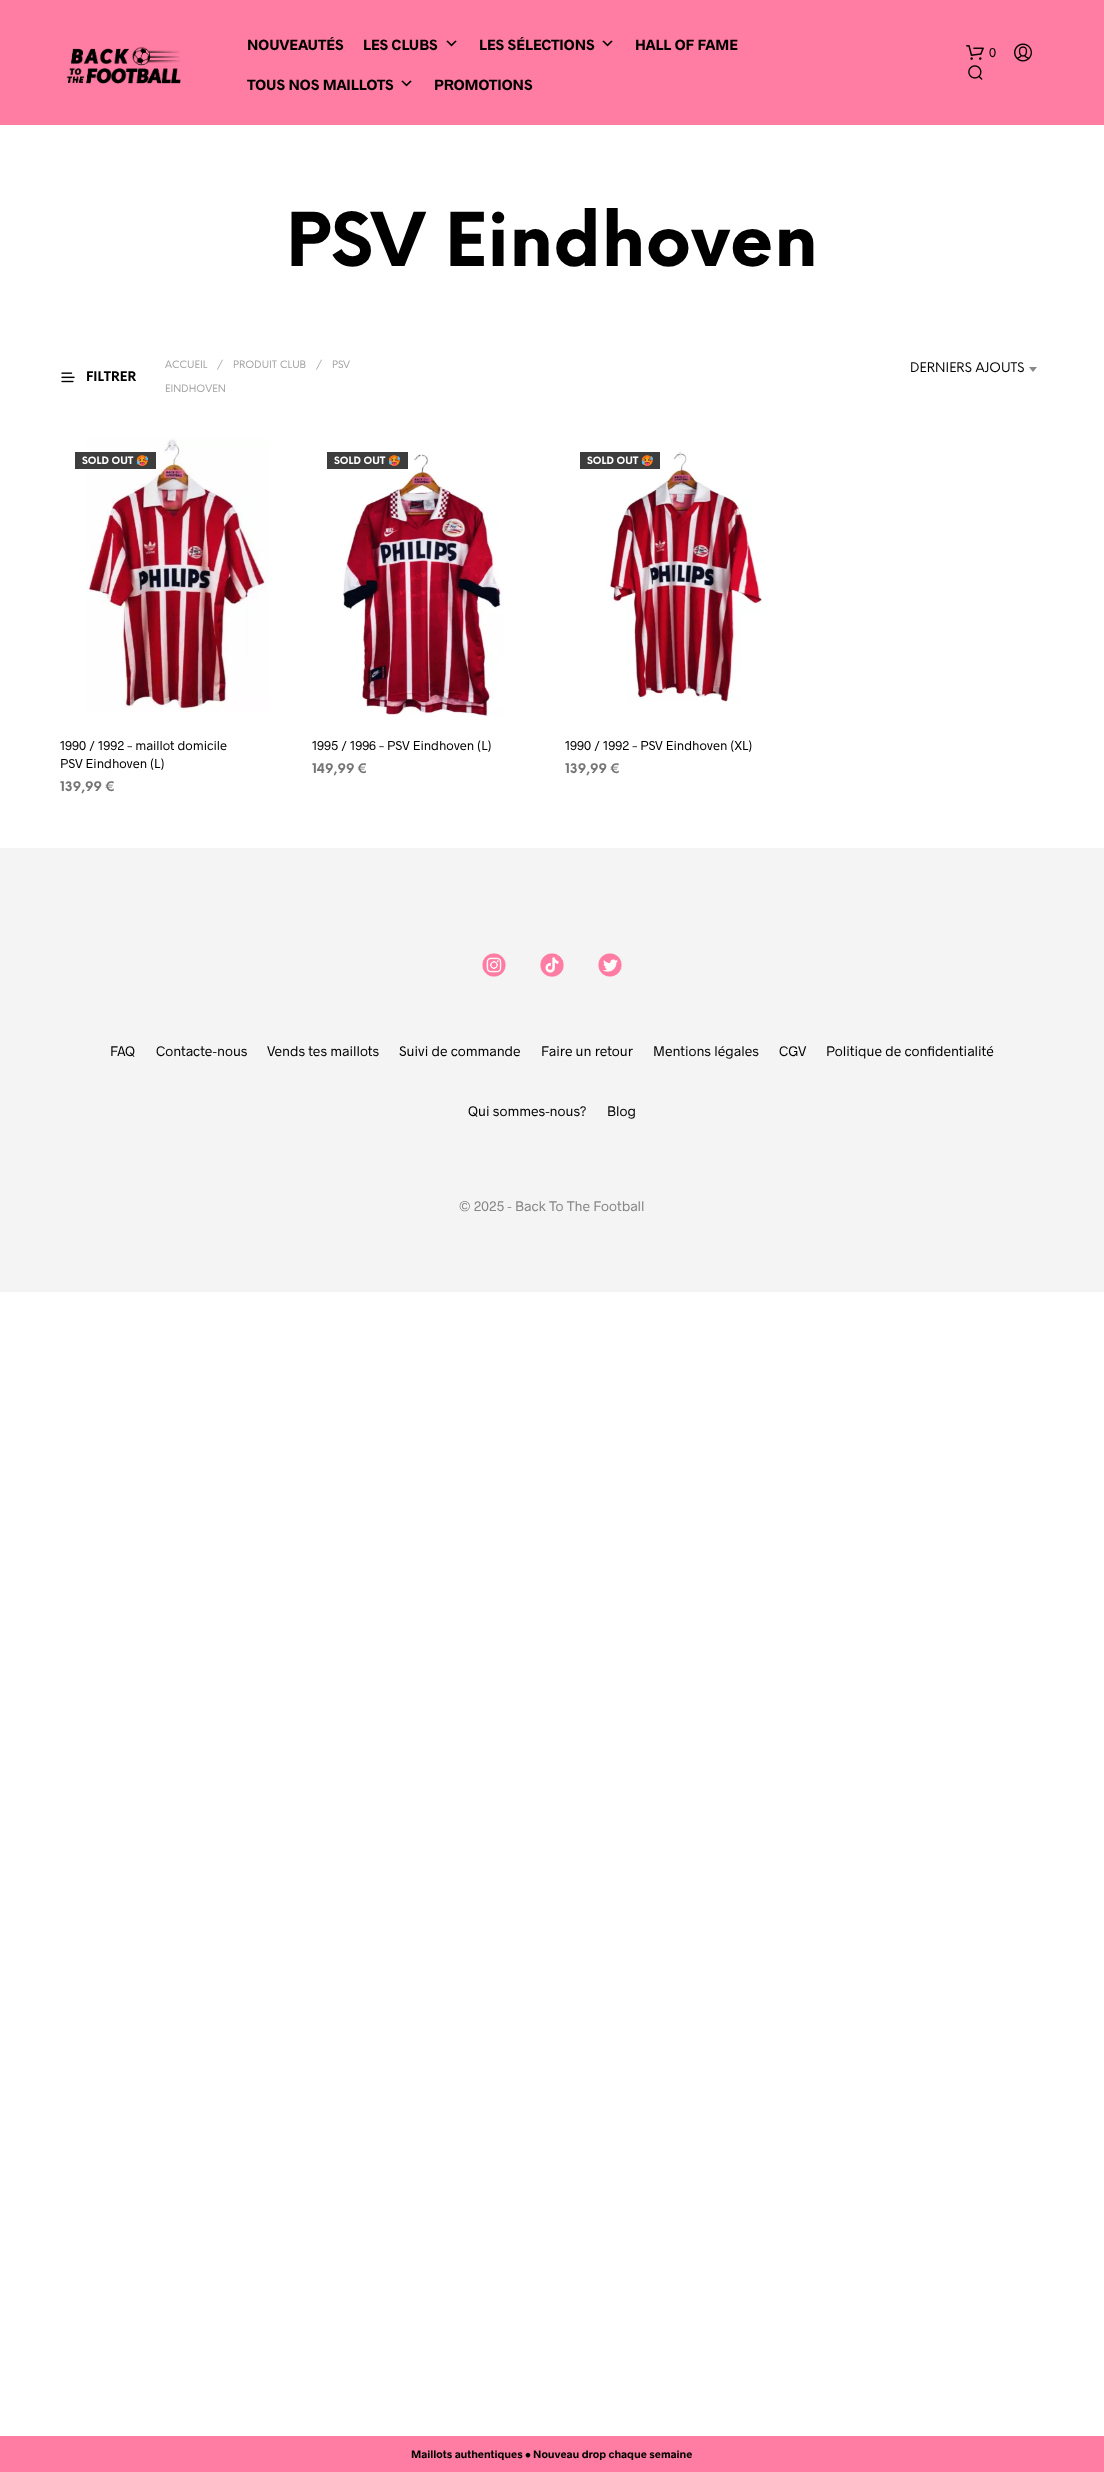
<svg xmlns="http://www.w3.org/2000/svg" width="1104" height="2472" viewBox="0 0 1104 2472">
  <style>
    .t1 { font: bold 15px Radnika; fill: #000; }
    .t2 { font: 13px Radnika; fill: #000; }
    .t3 { font: bold 72.5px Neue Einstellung; fill: #000; }
    .t4 { font: bold 13px Neue Einstellung; fill: #000; }
    .t5 { font: 10px Neue Einstellung; fill: #a1a1a1; }
    .t6 { font: 13px Neue Einstellung; fill: #000; }
    .t7 { font: bold 10px Neue Einstellung; fill: #fff; }
    .t8 { font: bold 10px Noto Color Emoji; fill: #fff; }
    .t9 { font: bold 13px Neue Einstellung; fill: #767676; }
    .t10 { font: 14px Radnika; fill: #000; }
    .t11 { font: 14px Radnika; fill: #868686; }
    .t12 { font: bold 11px Radnika; fill: #000; }
  </style>
  <rect width="100%" height="100%" fill="#fff"/>
  <rect x="0" y="0" width="1104" height="125" fill="#ff7da2"/>
  <image x="66" y="47" width="115" height="37" href="images/1.png"/>
  <text x="247" y="50" class="t1">NOUVEAUTÉS</text>
  <text x="363" y="50" class="t1">LES CLUBS</text>
  <image x="446" y="40" width="11" height="7" href="images/2.png"/>
  <text x="479" y="50" class="t1">LES SÉLECTIONS</text>
  <image x="602" y="40" width="11" height="7" href="images/2.png"/>
  <text x="635" y="50" class="t1">HALL OF FAME</text>
  <text x="247" y="90" class="t1">TOUS NOS MAILLOTS</text>
  <image x="401" y="80" width="11" height="7" href="images/2.png"/>
  <text x="434" y="90" class="t1">PROMOTIONS</text>
  <image x="966" y="45" width="18" height="15" href="images/3.png"/>
  <text x="989" y="57" class="t2">0</text>
  <image x="1014" y="43" width="18" height="19" href="images/4.png"/>
  <image x="968" y="65" width="15" height="15" href="images/5.png"/>
  <text x="286" y="266" class="t3">PSV Eindhoven</text>
  <image x="61" y="372" width="14" height="11" href="images/6.png"/>
  <text x="86" y="381" class="t4">FILTRER</text>
  <text x="165" y="368" class="t5">ACCUEIL</text>
  <text x="217" y="368" class="t5">/</text>
  <text x="233" y="368" class="t5">PRODUIT CLUB</text>
  <text x="316" y="368" class="t5">/</text>
  <text x="332" y="368" class="t5">PSV</text>
  <text x="165" y="392" class="t5">EINDHOVEN</text>
  <text x="910" y="372" class="t6">DERNIERS AJOUTS</text>
  <path d="M1029 367H1037L1033 372Z" fill="#888"/>
  <image x="86" y="438" width="182" height="274" href="images/7.png"/>
  <rect x="75" y="452" width="81" height="17" fill="#3d3d3d"/>
  <text x="82" y="464" class="t7">SOLD OUT</text>
  <text x="136" y="464" class="t8">🥵</text>
  <text x="60" y="750" class="t2">1990 / 1992 – maillot domicile</text>
  <text x="60" y="768" class="t2">PSV Eindhoven (L)</text>
  <text x="60" y="791" class="t9">139,99 €</text>
  <image x="343" y="453" width="161" height="264" href="images/8.png"/>
  <rect x="327" y="452" width="81" height="17" fill="#3d3d3d"/>
  <text x="334" y="464" class="t7">SOLD OUT</text>
  <text x="388" y="464" class="t8">🥵</text>
  <text x="312" y="750" class="t2">1995 / 1996 – PSV Eindhoven (L)</text>
  <text x="312" y="773" class="t9">149,99 €</text>
  <image x="606" y="450" width="156" height="252" href="images/9.png"/>
  <rect x="580" y="452" width="80" height="17" fill="#3d3d3d"/>
  <text x="587" y="464" class="t7">SOLD OUT</text>
  <text x="641" y="464" class="t8">🥵</text>
  <text x="565" y="750" class="t2">1990 / 1992 – PSV Eindhoven (XL)</text>
  <text x="565" y="773" class="t9">139,99 €</text>
  <rect x="0" y="848" width="1104" height="444" fill="#f4f4f4"/>
  <image x="482" y="953" width="24" height="24" href="images/10.png"/>
  <image x="540" y="953" width="24" height="24" href="images/11.png"/>
  <image x="598" y="953" width="24" height="24" href="images/12.png"/>
  <text x="110" y="1056" class="t10">FAQ</text>
  <text x="156" y="1056" class="t10">Contacte-nous</text>
  <text x="267" y="1056" class="t10">Vends tes maillots</text>
  <text x="399" y="1056" class="t10">Suivi de commande</text>
  <text x="541" y="1056" class="t10">Faire un retour</text>
  <text x="653" y="1056" class="t10">Mentions légales</text>
  <text x="779" y="1056" class="t10">CGV</text>
  <text x="826" y="1056" class="t10">Politique de confidentialité</text>
  <text x="468" y="1116" class="t10">Qui sommes-nous?</text>
  <text x="607" y="1116" class="t10">Blog</text>
  <text x="459" y="1211" class="t11">© 2025 - Back To The Football</text>
  <rect x="0" y="2436" width="1104" height="36" fill="#ff7da2"/>
  <text x="411" y="2458" class="t12">Maillots authentiques • Nouveau drop chaque semaine</text>
</svg>
